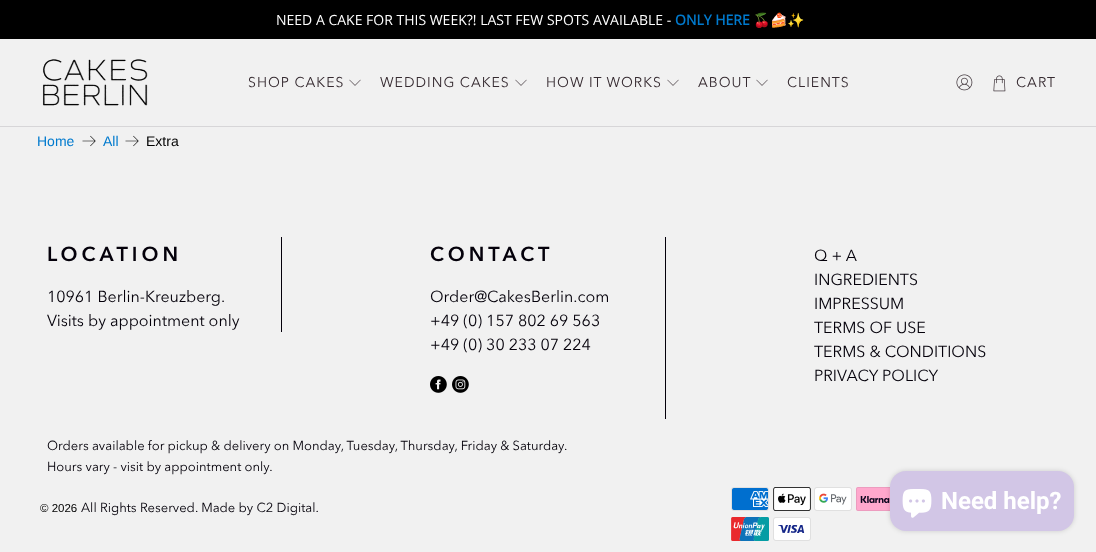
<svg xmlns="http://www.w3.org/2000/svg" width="1096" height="552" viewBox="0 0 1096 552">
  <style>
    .t1 { font: 14px Open Sans; fill: #fff; }
    .t2 { font: bold 14px Open Sans; fill: #007ace; }
    .t3 { font: 14px Noto Color Emoji; fill: #fff; }
    .t4 { font: 14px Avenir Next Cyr; letter-spacing: 1px; fill: #362b31; }
    .t5 { font: 14px Liberation Sans; fill: #007ace; }
    .t6 { font: 14px Liberation Sans; fill: #000; }
    .t7 { font: bold 20px Avenir Next Cyr; letter-spacing: 4px; fill: #04000a; }
    .t8 { font: 16px Avenir Next Cyr; fill: #04000a; }
    .t9 { font: 13px Avenir Next Cyr; fill: #04000a; }
    .t10 { font: 11.5px Liberation Sans; fill: #000; }
    .t11 { font: bold 24px Roboto; fill: #fff; }
  </style>
  <rect width="100%" height="100%" fill="#f1f1f1"/>
  <rect x="0" y="0" width="1096" height="39" fill="#000"/>
  <text x="276" y="25" class="t1">NEED A CAKE FOR THIS WEEK?! LAST FEW SPOTS AVAILABLE -</text>
  <text x="675" y="25" class="t2">ONLY HERE</text>
  <text x="753" y="25" class="t3">🍒🍰✨</text>
  <rect x="0" y="126" width="1096" height="1" fill="#d7d6d8"/>
  <image x="42" y="59" width="106" height="47" href="images/1.png"/>
  <text x="248" y="87" class="t4">SHOP CAKES</text>
  <image x="349" y="79" width="12" height="7" href="images/2.png"/>
  <text x="380" y="87" class="t4">WEDDING CAKES</text>
  <image x="515" y="79" width="12" height="7" href="images/2.png"/>
  <text x="546" y="87" class="t4">HOW IT WORKS</text>
  <image x="667" y="79" width="12" height="7" href="images/2.png"/>
  <text x="698" y="87" class="t4">ABOUT</text>
  <image x="756" y="79" width="12" height="7" href="images/2.png"/>
  <text x="787" y="87" class="t4">CLIENTS</text>
  <image x="956" y="74" width="17" height="17" href="images/3.png"/>
  <image x="993" y="75" width="13" height="17" href="images/4.png"/>
  <text x="1016" y="87" class="t4">CART</text>
  <text x="37" y="146" class="t5">Home</text>
  <image x="82" y="135" width="14" height="12" href="images/5.png"/>
  <text x="103" y="146" class="t5">All</text>
  <image x="125" y="135" width="14" height="12" href="images/5.png"/>
  <text x="146" y="146" class="t6">Extra</text>
  <rect x="281" y="237" width="1" height="95" fill="#04000a"/>
  <text x="47" y="261" class="t7">LOCATION</text>
  <text x="47" y="302" class="t8">10961 Berlin-Kreuzberg.</text>
  <text x="47" y="326" class="t8">Visits by appointment only</text>
  <rect x="665" y="237" width="1" height="182" fill="#04000a"/>
  <text x="430" y="261" class="t7">CONTACT</text>
  <text x="430" y="302" class="t8">Order@CakesBerlin.com</text>
  <text x="430" y="326" class="t8">+49 (0) 157 802 69 563</text>
  <text x="430" y="350" class="t8">+49 (0) 30 233 07 224</text>
  <image x="430" y="376" width="17" height="17" href="images/6.png"/>
  <image x="452" y="376" width="17" height="17" href="images/7.png"/>
  <text x="814" y="261" class="t8">Q + A</text>
  <text x="814" y="285" class="t8">INGREDIENTS</text>
  <text x="814" y="309" class="t8">IMPRESSUM</text>
  <text x="814" y="333" class="t8">TERMS OF USE</text>
  <text x="814" y="357" class="t8">TERMS &amp; CONDITIONS</text>
  <text x="814" y="381" class="t8">PRIVACY POLICY</text>
  <text x="47" y="450" class="t9">Orders available for pickup &amp; delivery on Monday, Tuesday, Thursday, Friday &amp; Saturday.</text>
  <text x="47" y="471" class="t9">Hours vary - visit by appointment only.</text>
  <text x="40" y="512" class="t10">© 2026</text>
  <text x="81" y="512" class="t9">All Rights Reserved. Made by C2 Digital.</text>
  <image x="731" y="487" width="38" height="24" href="images/8.png"/>
  <image x="773" y="487" width="38" height="24" href="images/9.png"/>
  <image x="814" y="487" width="38" height="24" href="images/10.png"/>
  <image x="856" y="487" width="34" height="24" href="images/11.png"/>
  <image x="731" y="517" width="38" height="24" href="images/12.png"/>
  <image x="773" y="517" width="38" height="24" href="images/13.png"/>
  <rect x="890" y="471" width="184" height="60" rx="16" fill="#00000026" filter="blur(2.5px)"/>
  <rect x="890" y="471" width="184" height="60" rx="16" fill="#d2c6e6"/>
  <image x="902" y="489" width="30" height="29" href="images/14.png"/>
  <text x="941" y="509" class="t11">Need help?</text>
</svg>
